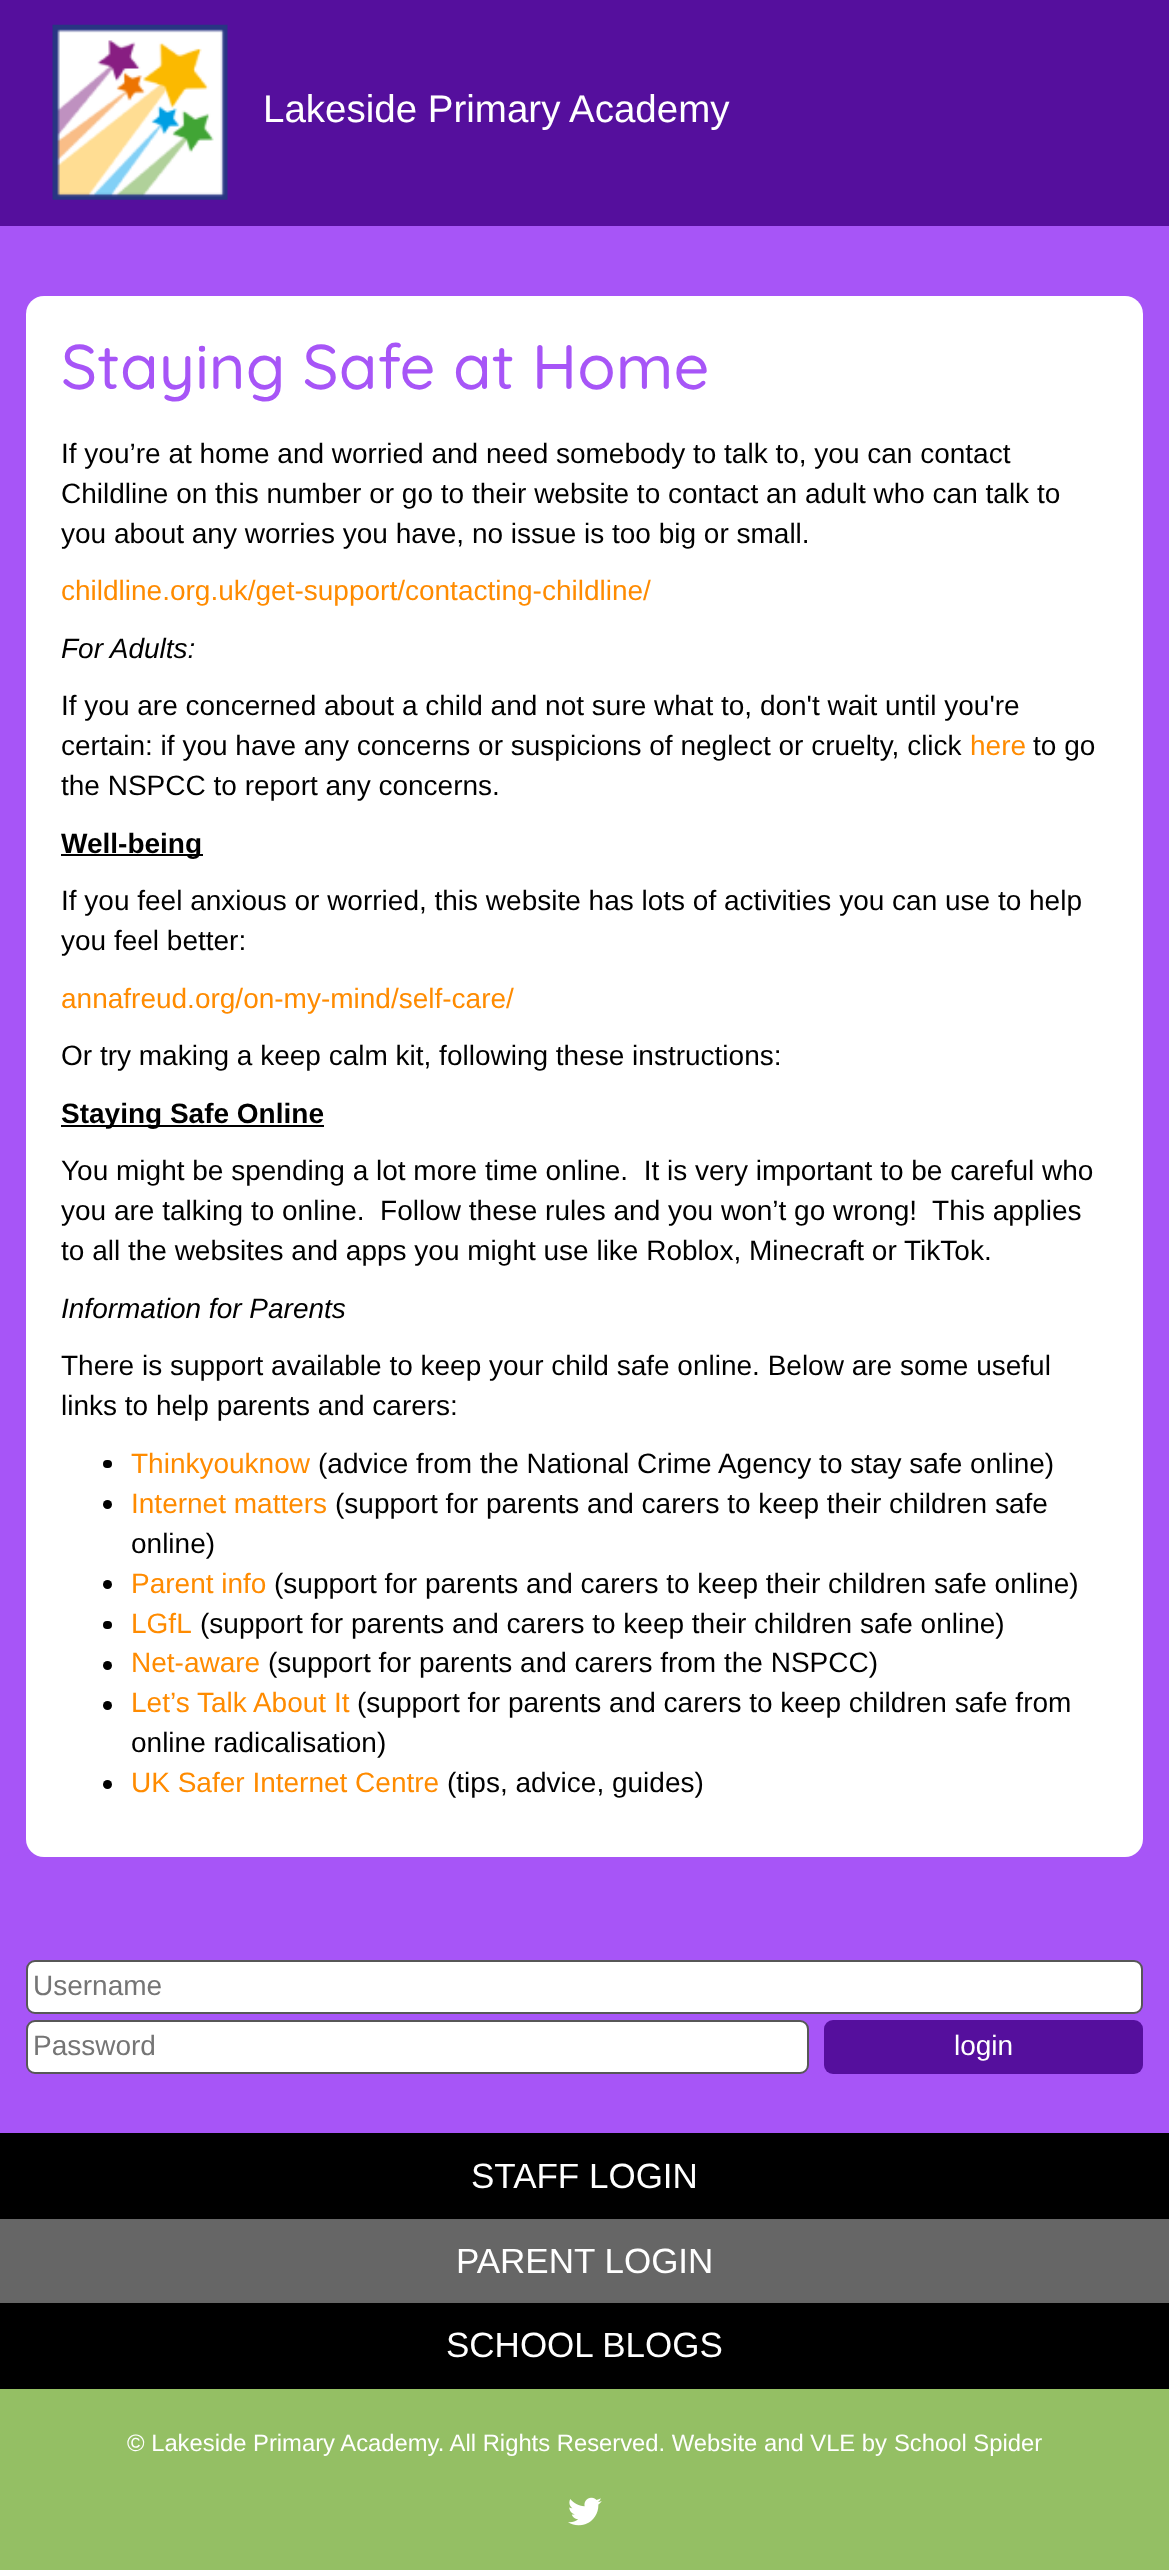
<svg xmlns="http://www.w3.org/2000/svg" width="1169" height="2570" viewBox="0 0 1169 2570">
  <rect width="100%" height="100%" fill="#a755f7"/>
  <rect x="0" y="0" width="1169" height="226" fill="#550f9d"/>
  <image x="52" y="24" width="176" height="176" href="img1.png"/>
  <text x="263" y="122" font-family="Liberation Sans" font-size="38.5" fill="#ffffff">Lakeside Primary Academy</text>
  <rect x="26" y="296" width="1117" height="1561" rx="18" fill="#ffffff"/>
  <text x="61" y="389" font-family="Quicksand" font-size="63" font-weight="500" fill="#a755f7">Staying Safe at Home</text>
  <text x="61" y="463" font-family="Liberation Sans" font-size="28" fill="#000000">If you’re at home and worried and need somebody to talk to, you can contact</text>
  <text x="61" y="503" font-family="Liberation Sans" font-size="28" fill="#000000">Childline on this number or go to their website to contact an adult who can talk to</text>
  <text x="61" y="543" font-family="Liberation Sans" font-size="28" fill="#000000">you about any worries you have, no issue is too big or small.</text>
  <text x="61" y="600" font-family="Liberation Sans" font-size="28" fill="#ff8b00">childline.org.uk/get-support/contacting-childline/</text>
  <text x="61" y="658" font-family="Liberation Sans" font-size="28" font-style="italic" fill="#000000">For Adults:</text>
  <text x="61" y="715" font-family="Liberation Sans" font-size="28" fill="#000000">If you are concerned about a child and not sure what to, don't wait until you're</text>
  <text x="61" y="755" font-family="Liberation Sans" font-size="28" fill="#000000">certain: if you have any concerns or suspicions of neglect or cruelty, click</text>
  <text x="970" y="755" font-family="Liberation Sans" font-size="28" fill="#ff8b00">here</text>
  <text x="1033" y="755" font-family="Liberation Sans" font-size="28" fill="#000000">to go</text>
  <text x="61" y="795" font-family="Liberation Sans" font-size="28" fill="#000000">the NSPCC to report any concerns.</text>
  <rect x="61" y="854" width="142" height="2" fill="#000000"/>
  <text x="61" y="853" font-family="Liberation Sans" font-size="28" font-weight="bold" fill="#000000">Well-being</text>
  <text x="61" y="910" font-family="Liberation Sans" font-size="28" fill="#000000">If you feel anxious or worried, this website has lots of activities you can use to help</text>
  <text x="61" y="950" font-family="Liberation Sans" font-size="28" fill="#000000">you feel better:</text>
  <text x="61" y="1008" font-family="Liberation Sans" font-size="28" fill="#ff8b00">annafreud.org/on-my-mind/self-care/</text>
  <text x="61" y="1065" font-family="Liberation Sans" font-size="28" fill="#000000">Or try making a keep calm kit, following these instructions:</text>
  <rect x="61" y="1125" width="263" height="2" fill="#000000"/>
  <text x="61" y="1123" font-family="Liberation Sans" font-size="28" font-weight="bold" fill="#000000">Staying Safe Online</text>
  <text x="61" y="1180" font-family="Liberation Sans" font-size="28" fill="#000000" xml:space="preserve">You might be spending a lot more time online.  It is very important to be careful who</text>
  <text x="61" y="1220" font-family="Liberation Sans" font-size="28" fill="#000000" xml:space="preserve">you are talking to online.  Follow these rules and you won’t go wrong!  This applies</text>
  <text x="61" y="1260" font-family="Liberation Sans" font-size="28" fill="#000000">to all the websites and apps you might use like Roblox, Minecraft or TikTok.</text>
  <text x="61" y="1318" font-family="Liberation Sans" font-size="28" font-style="italic" fill="#000000">Information for Parents</text>
  <text x="61" y="1375" font-family="Liberation Sans" font-size="28" fill="#000000">There is support available to keep your child safe online. Below are some useful</text>
  <text x="61" y="1415" font-family="Liberation Sans" font-size="28" fill="#000000">links to help parents and carers:</text>
  <rect x="103" y="1460" width="9" height="8" rx="4" fill="#000000"/>
  <text x="131" y="1473" font-family="Liberation Sans" font-size="28" fill="#ff8b00">Thinkyouknow</text>
  <text x="318" y="1473" font-family="Liberation Sans" font-size="28" fill="#000000">(advice from the National Crime Agency to stay safe online)</text>
  <circle cx="107.5" cy="1504.5" r="4.5" fill="#000000"/>
  <text x="131" y="1513" font-family="Liberation Sans" font-size="28" fill="#ff8b00">Internet matters</text>
  <text x="335" y="1513" font-family="Liberation Sans" font-size="28" fill="#000000">(support for parents and carers to keep their children safe</text>
  <text x="131" y="1553" font-family="Liberation Sans" font-size="28" fill="#000000">online)</text>
  <circle cx="107.5" cy="1584.5" r="4.5" fill="#000000"/>
  <text x="131" y="1593" font-family="Liberation Sans" font-size="28" fill="#ff8b00">Parent info</text>
  <text x="274" y="1593" font-family="Liberation Sans" font-size="28" fill="#000000">(support for parents and carers to keep their children safe online)</text>
  <rect x="103" y="1621" width="9" height="8" rx="4" fill="#000000"/>
  <text x="131" y="1633" font-family="Liberation Sans" font-size="28" fill="#ff8b00">LGfL</text>
  <text x="200" y="1633" font-family="Liberation Sans" font-size="28" fill="#000000">(support for parents and carers to keep their children safe online)</text>
  <circle cx="107.5" cy="1665.5" r="4.5" fill="#000000"/>
  <text x="131" y="1672" font-family="Liberation Sans" font-size="28" fill="#ff8b00">Net-aware</text>
  <text x="268" y="1672" font-family="Liberation Sans" font-size="28" fill="#000000">(support for parents and carers from the NSPCC)</text>
  <circle cx="107.5" cy="1705.5" r="4.5" fill="#000000"/>
  <text x="131" y="1712" font-family="Liberation Sans" font-size="28" fill="#ff8b00">Let’s Talk About It</text>
  <text x="357" y="1712" font-family="Liberation Sans" font-size="28" fill="#000000">(support for parents and carers to keep children safe from</text>
  <text x="131" y="1752" font-family="Liberation Sans" font-size="28" fill="#000000">online radicalisation)</text>
  <circle cx="107.5" cy="1784.5" r="4.5" fill="#000000"/>
  <text x="131" y="1792" font-family="Liberation Sans" font-size="28" fill="#ff8b00">UK Safer Internet Centre</text>
  <text x="447" y="1792" font-family="Liberation Sans" font-size="28" fill="#000000">(tips, advice, guides)</text>
  <rect x="27" y="1961" width="1115" height="52" rx="8" fill="#ffffff" stroke="#575757" stroke-width="2"/>
  <text x="33" y="1995" font-family="Liberation Sans" font-size="28" fill="#757575">Username</text>
  <rect x="27" y="2021" width="781" height="52" rx="8" fill="#ffffff" stroke="#575757" stroke-width="2"/>
  <text x="33" y="2055" font-family="Liberation Sans" font-size="28" fill="#757575">Password</text>
  <rect x="824" y="2020" width="319" height="54" rx="9" fill="#550f9d"/>
  <text x="954" y="2055" font-family="Liberation Sans" font-size="28" fill="#ffffff">login</text>
  <rect x="0" y="2133" width="1169" height="86" fill="#000000"/>
  <text x="471" y="2188" font-family="Liberation Sans" font-size="35" fill="#ffffff">STAFF LOGIN</text>
  <rect x="0" y="2219" width="1169" height="84" fill="#666666"/>
  <text x="456" y="2273" font-family="Liberation Sans" font-size="35" fill="#ffffff">PARENT LOGIN</text>
  <rect x="0" y="2303" width="1169" height="86" fill="#000000"/>
  <text x="446" y="2357" font-family="Liberation Sans" font-size="35" fill="#ffffff">SCHOOL BLOGS</text>
  <rect x="0" y="2389" width="1169" height="181" fill="#94bf64"/>
  <text x="127" y="2451" font-family="Liberation Sans" font-size="23.8" fill="#ffffff">© Lakeside Primary Academy. All Rights Reserved. Website and VLE by</text>
  <text x="894" y="2451" font-family="Liberation Sans" font-size="23.8" fill="#ffffff">School Spider</text>
  <image x="568" y="2497" width="34" height="29" href="img2.png"/>
</svg>
